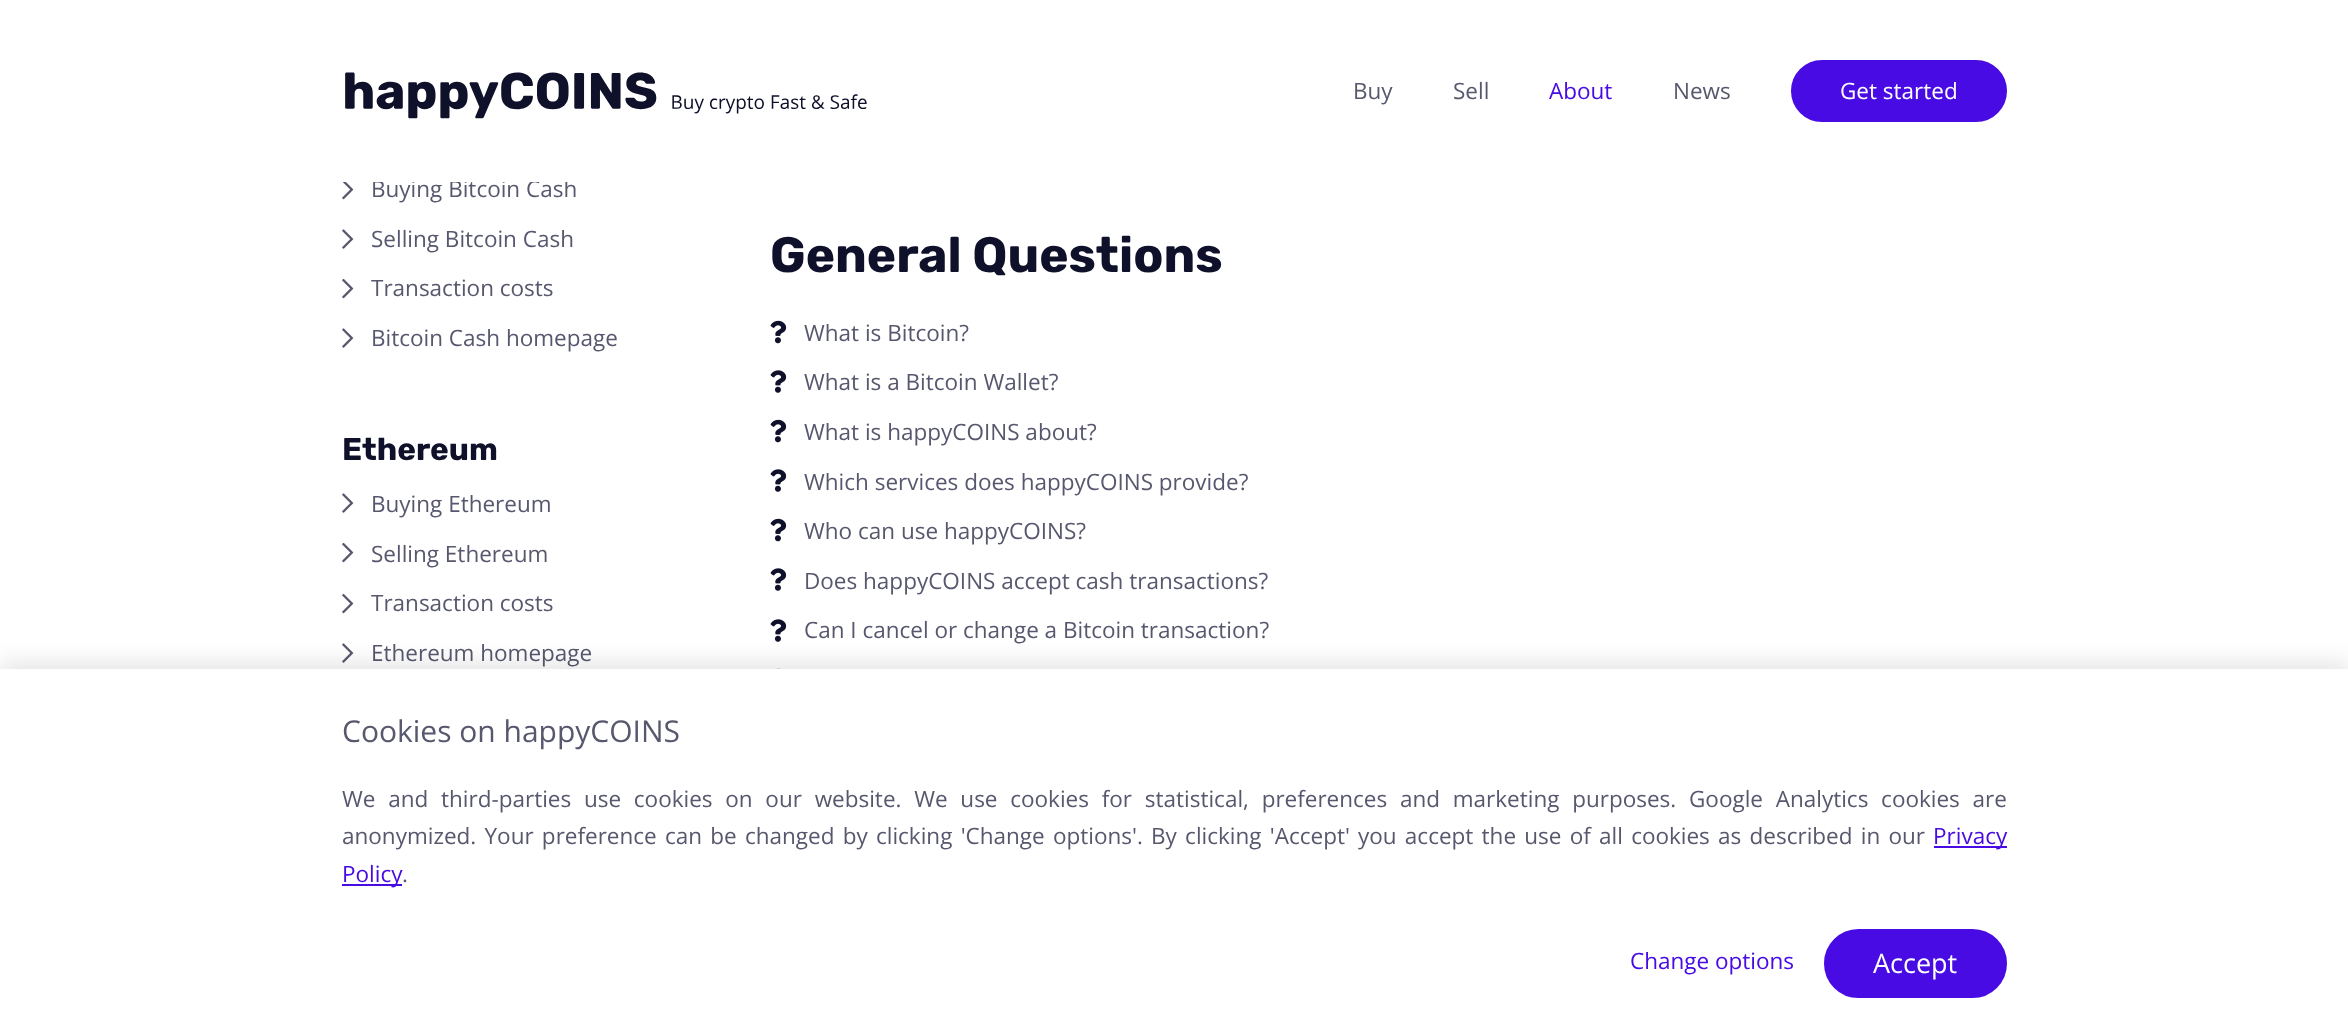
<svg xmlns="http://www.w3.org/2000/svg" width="2348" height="1033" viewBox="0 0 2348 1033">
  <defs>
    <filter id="blur1" x="-50%" y="-200%" width="200%" height="500%"><feGaussianBlur stdDeviation="11"/></filter>
  </defs>
  <rect width="100%" height="100%" fill="#ffffff"/>
  <text x="371" y="197" font-family="Open Sans" font-size="22.5" fill="#57586e">Buying Bitcoin Cash</text>
  <rect x="373" y="179" width="195" height="3" fill="#ffffff"/>
  <image x="345" y="72" width="522" height="47" href="img1.png"/>
  <text x="1353" y="99" font-family="Open Sans" font-size="22.5" fill="#57586e">Buy</text>
  <text x="1453" y="99" font-family="Open Sans" font-size="22.5" fill="#57586e">Sell</text>
  <text x="1549" y="99" font-family="Open Sans" font-size="22.5" fill="#480be3">About</text>
  <text x="1673" y="99" font-family="Open Sans" font-size="22.5" fill="#57586e">News</text>
  <rect x="1792" y="61" width="214" height="60" rx="30" fill="#480be3" stroke="#480be3" stroke-width="2"/>
  <text x="1840" y="99" font-family="Open Sans" font-size="22.5" fill="#ffffff">Get started</text>
  <image x="342" y="182" width="12" height="18" href="img2.png"/>
  <image x="342" y="229" width="12" height="20" href="img3.png"/>
  <text x="371" y="247" font-family="Open Sans" font-size="22.5" fill="#57586e">Selling Bitcoin Cash</text>
  <image x="342" y="278" width="12" height="21" href="img4.png"/>
  <text x="371" y="296" font-family="Open Sans" font-size="22.5" fill="#57586e">Transaction costs</text>
  <image x="342" y="328" width="12" height="20" href="img3.png"/>
  <text x="371" y="346" font-family="Open Sans" font-size="22.5" fill="#57586e">Bitcoin Cash homepage</text>
  <text x="342" y="460" font-family="Rubik" font-size="31.5" font-weight="300" fill="#0f102a">Ethereum</text>
  <image x="342" y="493" width="12" height="20" href="img3.png"/>
  <text x="371" y="512" font-family="Open Sans" font-size="22.5" fill="#57586e">Buying Ethereum</text>
  <image x="342" y="542" width="12" height="21" href="img4.png"/>
  <text x="371" y="562" font-family="Open Sans" font-size="22.5" fill="#57586e">Selling Ethereum</text>
  <image x="342" y="593" width="12" height="21" href="img4.png"/>
  <text x="371" y="611" font-family="Open Sans" font-size="22.5" fill="#57586e">Transaction costs</text>
  <image x="342" y="643" width="12" height="20" href="img3.png"/>
  <text x="371" y="661" font-family="Open Sans" font-size="22.5" fill="#57586e">Ethereum homepage</text>
  <text x="770" y="272" font-family="Rubik" font-size="49.5" font-weight="300" fill="#0f102a">General Questions</text>
  <image x="770" y="320" width="17" height="24" href="img5.png"/>
  <text x="804" y="341" font-family="Open Sans" font-size="22.5" fill="#57586e">What is Bitcoin?</text>
  <image x="770" y="370" width="17" height="23" href="img6.png"/>
  <text x="804" y="390" font-family="Open Sans" font-size="22.5" fill="#57586e">What is a Bitcoin Wallet?</text>
  <image x="770" y="419" width="17" height="24" href="img5.png"/>
  <text x="804" y="440" font-family="Open Sans" font-size="22.5" fill="#57586e">What is happyCOINS about?</text>
  <image x="770" y="469" width="17" height="23" href="img6.png"/>
  <text x="804" y="490" font-family="Open Sans" font-size="22.5" fill="#57586e">Which services does happyCOINS provide?</text>
  <image x="770" y="518" width="17" height="24" href="img5.png"/>
  <text x="804" y="539" font-family="Open Sans" font-size="22.5" fill="#57586e">Who can use happyCOINS?</text>
  <image x="770" y="568" width="17" height="23" href="img6.png"/>
  <text x="804" y="589" font-family="Open Sans" font-size="22.5" fill="#57586e">Does happyCOINS accept cash transactions?</text>
  <image x="770" y="619" width="17" height="23" href="img6.png"/>
  <text x="804" y="638" font-family="Open Sans" font-size="22.5" fill="#57586e">Can I cancel or change a Bitcoin transaction?</text>
  <image x="777" y="668" width="3" height="1" href="img7.png"/>
  <rect x="0" y="662" width="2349" height="364" fill="#000000" fill-opacity="0.1" filter="url(#blur1)"/>
  <rect x="0" y="669" width="2348" height="364" fill="#ffffff"/>
  <text x="342" y="742" font-family="Open Sans" font-size="30" fill="#57586e">Cookies on happyCOINS</text>
  <text x="342" y="807" word-spacing="6.9" font-family="Open Sans" font-size="22.5" fill="#57586e">We and third-parties use cookies on our website. We use cookies for statistical, preferences and marketing purposes. Google Analytics cookies are</text>
  <text x="342" y="844" word-spacing="2.4" font-family="Open Sans" font-size="22.5" fill="#57586e">anonymized. Your preference can be changed by clicking 'Change options'. By clicking 'Accept'</text>
  <text x="1358" y="844" word-spacing="2.4" font-family="Open Sans" font-size="22.5" fill="#57586e">you accept the use of all cookies as described in our</text>
  <rect x="1934" y="846" width="73" height="2" fill="#480be3"/>
  <text x="1933" y="844" font-family="Open Sans" font-size="22.5" fill="#480be3">Privacy</text>
  <rect x="342" y="884" width="60" height="2" fill="#480be3"/>
  <text x="342" y="882" font-family="Open Sans" font-size="22.5" fill="#480be3">Policy</text>
  <text x="402" y="882" font-family="Open Sans" font-size="22.5" fill="#57586e">.</text>
  <text x="1630" y="969" font-family="Open Sans" font-size="22.5" fill="#480be3">Change options</text>
  <rect x="1825" y="930" width="181" height="67" rx="33.5" fill="#480be3" stroke="#480be3" stroke-width="2"/>
  <text x="1873" y="973" font-family="Open Sans" font-size="27" fill="#ffffff">Accept</text>
</svg>
